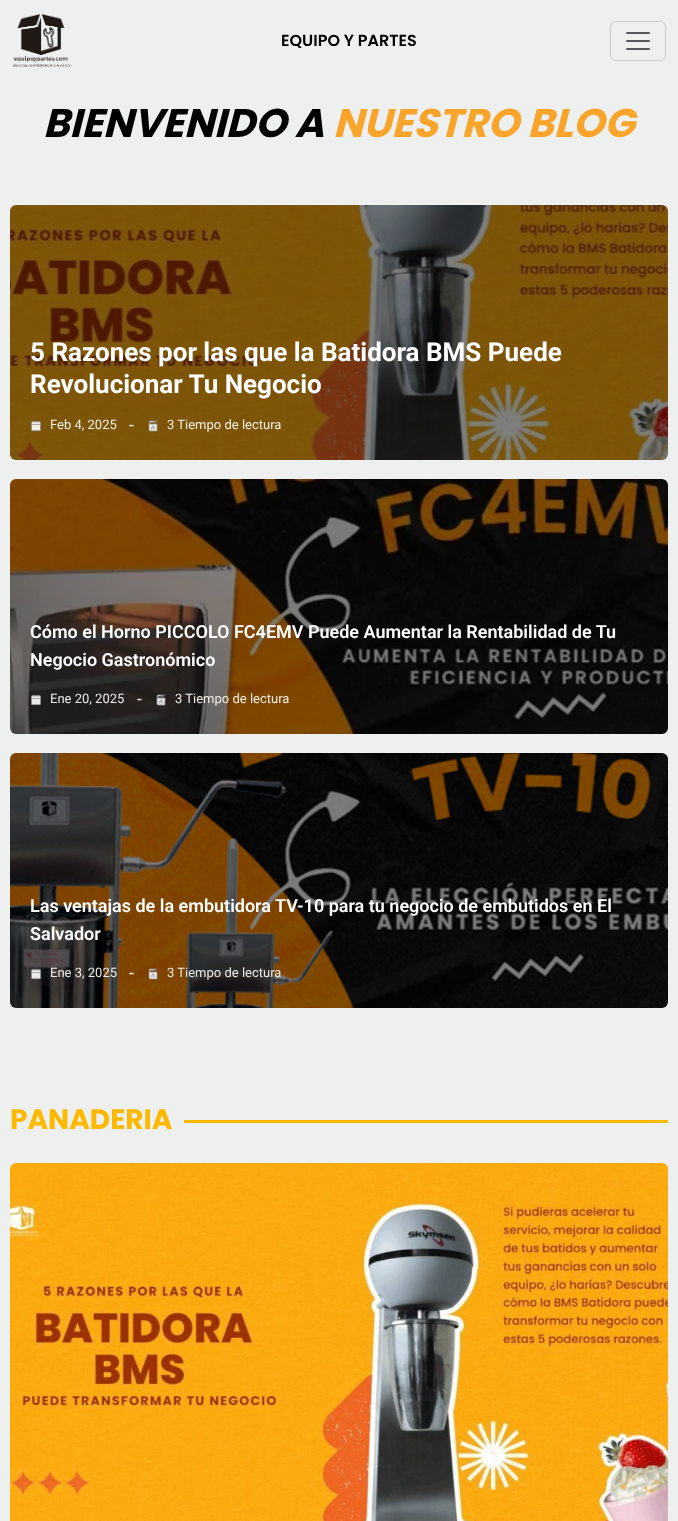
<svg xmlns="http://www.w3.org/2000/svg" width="678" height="1521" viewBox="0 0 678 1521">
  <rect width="100%" height="100%" fill="#eef0ef"/>
  <image x="13" y="14" width="58" height="53" href="img1.png"/>
  <text x="281" y="46" font-family="Poppins" font-size="16" font-weight="600" fill="#000000">EQUIPO Y PARTES</text>
  <rect x="610.5" y="21.5" width="55" height="39" rx="5.5" fill="none" stroke="#cacccb"/>
  <image x="626" y="32" width="24" height="18" href="img2.png"/>
  <text x="43" y="137" font-family="Poppins" font-size="40" font-weight="bold" font-style="italic" fill="#000000">BIENVENIDO A</text>
  <text x="333" y="137" font-family="Poppins" font-size="40" font-weight="bold" font-style="italic" fill="#f9a52b">NUESTRO BLOG</text>
  <image x="10" y="205" width="658" height="255" href="img3.png"/>
  <rect x="10" y="205" width="658" height="255" rx="6" fill="#000000" fill-opacity="0.5"/>
  <text x="30" y="361" font-family="Roboto" font-size="26" font-weight="bold" fill="#ffffff">5 Razones por las que la Batidora BMS Puede</text>
  <text x="30" y="393" font-family="Roboto" font-size="26" font-weight="bold" fill="#ffffff">Revolucionar Tu Negocio</text>
  <image x="31" y="420" width="10" height="12" href="img4.png"/>
  <text x="50" y="429" font-family="Roboto" font-size="13" fill="#f2eee6">Feb 4, 2025</text>
  <text x="129" y="431" font-family="Roboto" font-size="18" fill="#f2eee6">-</text>
  <image x="148" y="420" width="10" height="12" href="img5.png"/>
  <text x="167" y="429" font-family="Roboto" font-size="13" fill="#f2eee6">3 Tiempo de lectura</text>
  <image x="10" y="479" width="658" height="255" href="img6.png"/>
  <rect x="10" y="479" width="658" height="255" rx="6" fill="#000000" fill-opacity="0.5"/>
  <text x="30" y="638" font-family="Roboto" font-size="18" font-weight="600" fill="#ffffff">Cómo el Horno PICCOLO FC4EMV Puede Aumentar la Rentabilidad de Tu</text>
  <text x="30" y="666" font-family="Roboto" font-size="18" font-weight="600" fill="#ffffff">Negocio Gastronómico</text>
  <image x="31" y="694" width="10" height="12" href="img7.png"/>
  <text x="50" y="703" font-family="Roboto" font-size="13" fill="#e9e9e8">Ene 20, 2025</text>
  <text x="137" y="705" font-family="Roboto" font-size="18" fill="#e9e9e8">-</text>
  <image x="156" y="694" width="10" height="12" href="img8.png"/>
  <text x="175" y="703" font-family="Roboto" font-size="13" fill="#f2eee6">3 Tiempo de lectura</text>
  <image x="10" y="753" width="658" height="255" href="img9.png"/>
  <rect x="10" y="753" width="658" height="255" rx="6" fill="#000000" fill-opacity="0.5"/>
  <text x="30" y="912" font-family="Roboto" font-size="18" font-weight="600" fill="#ffffff">Las ventajas de la embutidora TV-10 para tu negocio de embutidos en El</text>
  <text x="30" y="940" font-family="Roboto" font-size="18" font-weight="600" fill="#ffffff">Salvador</text>
  <image x="31" y="968" width="10" height="12" href="img10.png"/>
  <text x="50" y="977" font-family="Roboto" font-size="13" fill="#e9e9e8">Ene 3, 2025</text>
  <text x="129" y="979" font-family="Roboto" font-size="18" fill="#f2eee6">-</text>
  <image x="148" y="968" width="10" height="12" href="img11.png"/>
  <text x="167" y="977" font-family="Roboto" font-size="13" fill="#e9e9e8">3 Tiempo de lectura</text>
  <text x="10" y="1129" font-family="Poppins" font-size="28" font-weight="bold" fill="#fcb900">PANADERIA</text>
  <rect x="184" y="1120" width="484" height="3" fill="#fcb900"/>
  <image x="10" y="1163" width="658" height="358" href="img12.png"/>
</svg>
